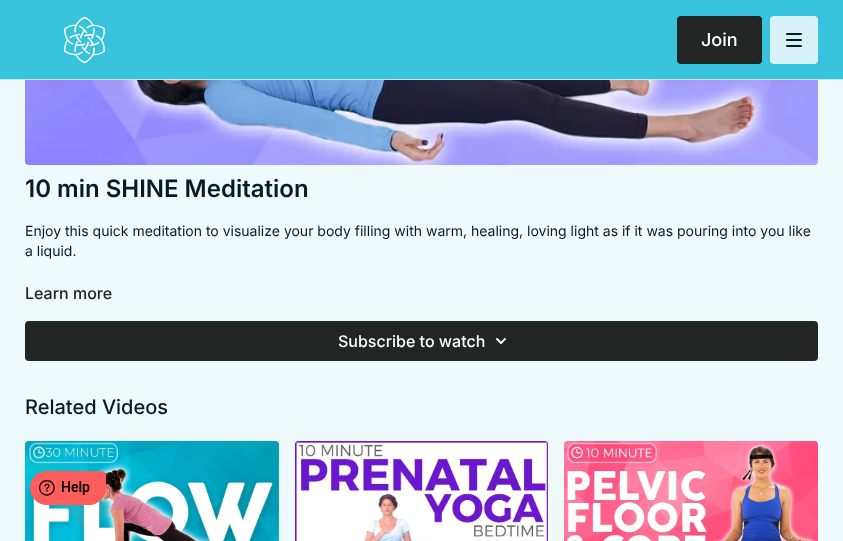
<svg xmlns="http://www.w3.org/2000/svg" width="843" height="541" viewBox="0 0 843 541">
  <rect width="100%" height="100%" fill="#eefafc"/>
  <rect x="0" y="0" width="843" height="79" fill="#38c3dc"/>
  <rect x="0" y="79" width="843" height="1" fill="#beebf4"/>
  <image x="64" y="16" width="42" height="48" href="img1.png"/>
  <rect x="677" y="16" width="85" height="48" rx="4" fill="#232424"/>
  <text x="701" y="46" font-family="Inter" font-size="18" font-weight="500" fill="#ffffff">Join</text>
  <rect x="770" y="16" width="48" height="48" rx="4" fill="#d8f3f8"/>
  <image x="786" y="33" width="16" height="14" href="img2.png"/>
  <image x="25" y="80" width="793" height="85" href="img3.png"/>
  <text x="25" y="197" font-family="Inter" font-size="24" font-weight="600" fill="#061e23">10 min SHINE Meditation</text>
  <text x="25" y="236" font-family="Inter" font-size="14" fill="#061e23">Enjoy this quick meditation to visualize your body filling with warm, healing, loving light as if it was pouring into you like</text>
  <text x="25" y="256" font-family="Inter" font-size="14" fill="#061e23">a liquid.</text>
  <text x="25" y="299" font-family="Inter" font-size="16" font-weight="500" fill="#232424">Learn more</text>
  <rect x="25" y="321" width="793" height="40" rx="4" fill="#232424"/>
  <text x="338" y="347" font-family="Inter" font-size="16" font-weight="500" fill="#ffffff">Subscribe to watch</text>
  <image x="496" y="338" width="10" height="6" href="img4.png"/>
  <text x="25" y="414" font-family="Inter" font-size="20" font-weight="500" fill="#061e23">Related Videos</text>
  <image x="25" y="441" width="254" height="100" href="img5.png"/>
  <image x="295" y="441" width="253" height="100" href="img6.png"/>
  <image x="564" y="441" width="254" height="100" href="img7.png"/>
  <image x="30" y="471" width="76" height="34" href="img8.png"/>
</svg>
